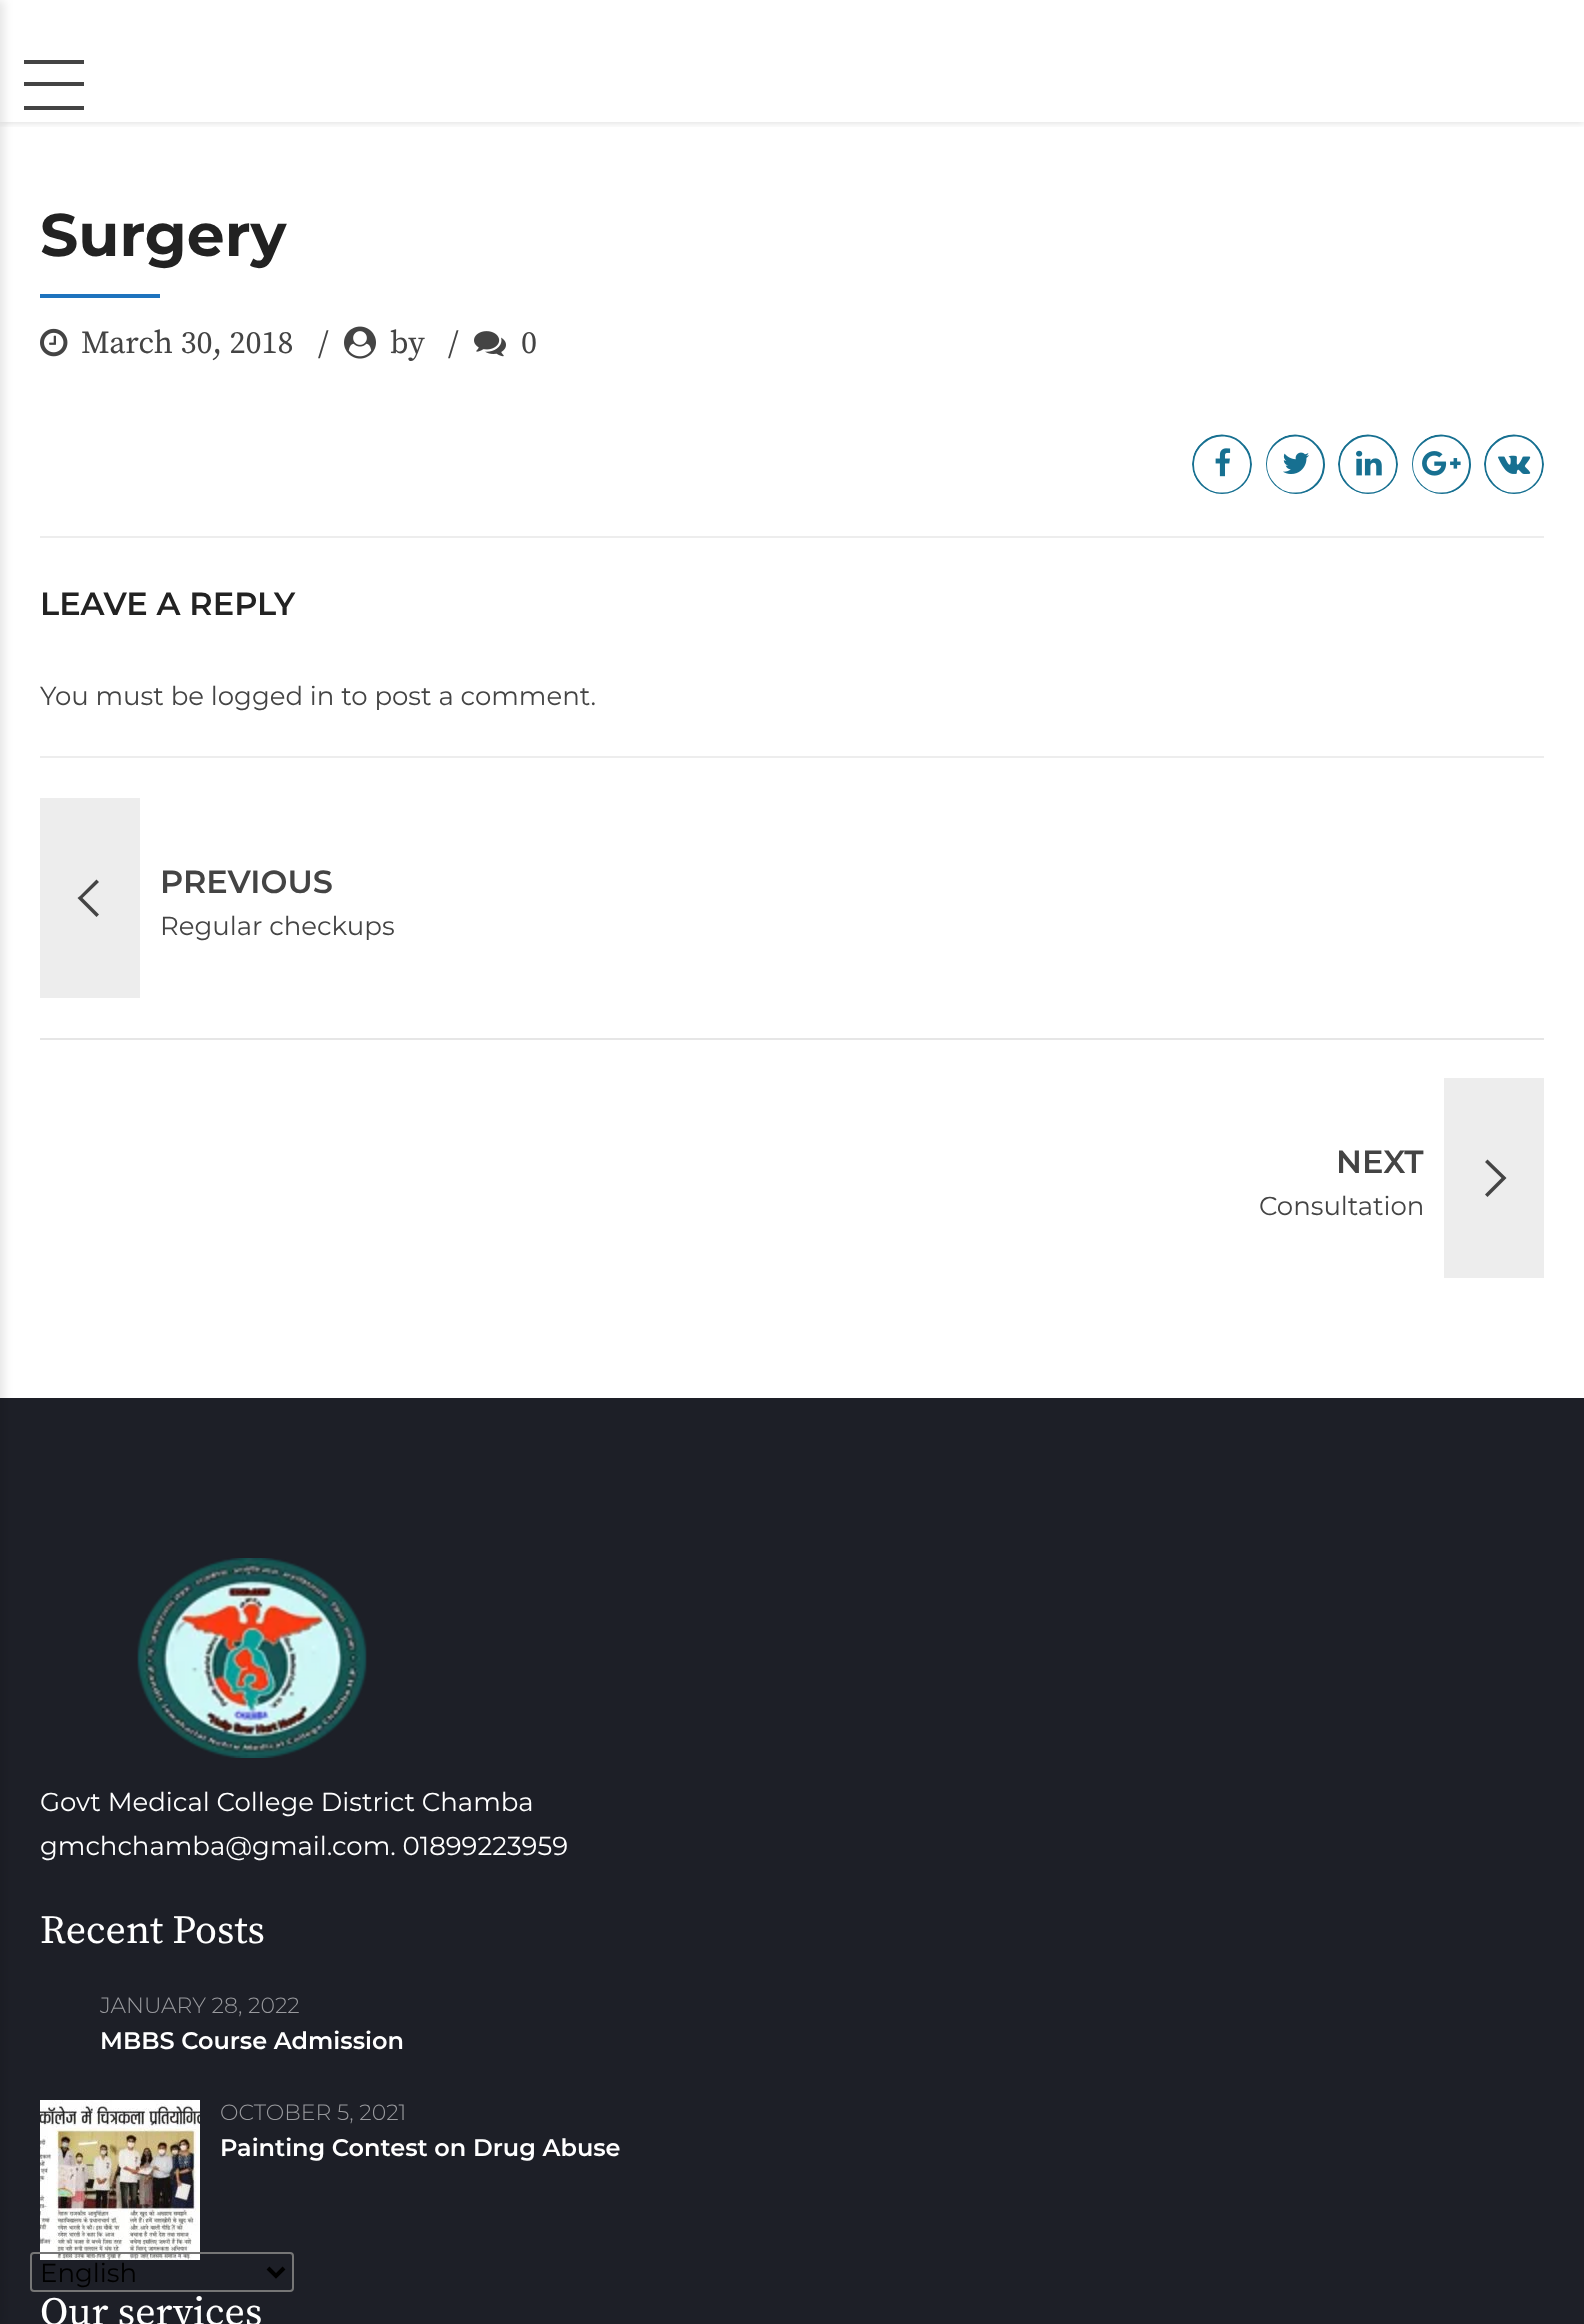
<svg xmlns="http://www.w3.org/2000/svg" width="1584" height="2324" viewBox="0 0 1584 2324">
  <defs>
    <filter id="blur1" x="-50%" y="-200%" width="200%" height="500%"><feGaussianBlur stdDeviation="5"/></filter>
    <clipPath id="clip1"><rect x="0" y="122" width="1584" height="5"/></clipPath>
    <filter id="blur2" x="-50%" y="-200%" width="200%" height="500%"><feGaussianBlur stdDeviation="3"/></filter>
    <clipPath id="clip2"><rect x="1192" y="434" width="60" height="60" rx="30"/></clipPath>
    <clipPath id="clip3"><rect x="1266" y="434" width="60" height="60" rx="30"/></clipPath>
    <clipPath id="clip4"><rect x="1338" y="434" width="60" height="60" rx="30"/></clipPath>
    <clipPath id="clip5"><rect x="1412" y="434" width="60" height="60" rx="30"/></clipPath>
    <clipPath id="clip6"><rect x="1484" y="434" width="60" height="60" rx="30"/></clipPath>
  </defs>
  <rect width="100%" height="100%" fill="#ffffff"/>
  <rect x="0" y="1398" width="1584" height="926" fill="#1d1f27"/>
  <rect x="-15" y="0" width="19" height="2324" fill="#000000" fill-opacity="0.1" filter="url(#blur1)"/>
  <g clip-path="url(#clip1)">
    <rect x="0" y="2" width="1584" height="122" fill="#000000" fill-opacity="0.1" filter="url(#blur2)"/>
  </g>
  <rect x="24" y="60" width="60" height="4" fill="#444444"/>
  <rect x="24" y="82" width="60" height="4" fill="#444444"/>
  <rect x="24" y="106" width="60" height="4" fill="#444444"/>
  <text x="40" y="256" font-family="Montserrat" font-size="60" font-weight="bold" fill="#222222">Surgery</text>
  <rect x="40" y="294" width="120" height="4" fill="#1e73be"/>
  <image x="40" y="328" width="28" height="29" href="img1.png"/>
  <text x="81" y="353" font-family="Source Serif Pro" font-size="32" fill="#444444">March 30, 2018</text>
  <text x="318" y="353" font-family="Source Serif Pro" font-size="32" fill="#444444">/</text>
  <image x="344" y="326" width="32" height="33" href="img2.png"/>
  <text x="390" y="353" font-family="Source Serif Pro" font-size="32" fill="#444444">by</text>
  <text x="448" y="353" font-family="Source Serif Pro" font-size="32" fill="#444444">/</text>
  <image x="474" y="331" width="32" height="26" href="img3.png"/>
  <text x="521" y="353" font-family="Source Serif Pro" font-size="32" fill="#444444">0</text>
  <g clip-path="url(#clip2)">
    <path d="M1244 446C1254.5 458 1253 476.5 1240.5 487C1228.5 497 1210 495.5 1200 483C1189.5 471 1191 452.5 1203.5 442.5C1215.5 432 1234 433.5 1244 446Z" fill="none" stroke="#177091" stroke-width="2"/>
  </g>
  <image x="1215" y="448" width="16" height="29" href="img4.png"/>
  <g clip-path="url(#clip3)">
    <path d="M1317 446C1327.5 458 1326 476.5 1313.5 487C1301.5 497 1283 495.5 1273 483C1262.5 471 1264 452.5 1276.5 442.5C1288.5 432 1307 433.5 1317 446Z" fill="none" stroke="#177091" stroke-width="2"/>
  </g>
  <image x="1283" y="452" width="26" height="22" href="img5.png"/>
  <g clip-path="url(#clip4)">
    <path d="M1390 446C1400.5 458 1399 476.5 1386.5 487C1374.5 497 1356 495.5 1346 483C1335.5 471 1337 452.5 1349.5 442.5C1361.5 432 1380 433.5 1390 446Z" fill="none" stroke="#177091" stroke-width="2"/>
  </g>
  <image x="1356" y="450" width="26" height="26" href="img6.png"/>
  <g clip-path="url(#clip5)">
    <path d="M1463 446C1473.5 458 1472 476.5 1459.5 487C1447.5 497 1429 495.5 1419 483C1408.5 471 1410 452.5 1422.5 442.5C1434.5 432 1453 433.5 1463 446Z" fill="none" stroke="#177091" stroke-width="2"/>
  </g>
  <image x="1422" y="451" width="39" height="25" href="img7.png"/>
  <g clip-path="url(#clip6)">
    <path d="M1536 446C1546.5 458 1545 476.5 1532.5 487C1520.5 497 1502 495.5 1492 483C1481.5 471 1483 452.5 1495.5 442.5C1507.5 432 1526 433.5 1536 446Z" fill="none" stroke="#177091" stroke-width="2"/>
  </g>
  <image x="1498" y="455" width="33" height="19" href="img8.png"/>
  <rect x="40" y="536" width="1504" height="2" fill="#ededed"/>
  <text x="40" y="615" font-family="Montserrat" font-size="32" font-weight="600" fill="#222222">LEAVE A REPLY</text>
  <text x="40" y="705" font-family="Montserrat" font-size="26" fill="#444444">You must be logged in to post a comment.</text>
  <rect x="40" y="756" width="1504" height="2" fill="#ededed"/>
  <rect x="40" y="798" width="100" height="200" fill="#ededed"/>
  <path d="M80 896L77.5 898L96.5 917L99 914.5L82.5 898L99 882L96.5 879.5Z" fill="#444444"/>
  <text x="160" y="893" font-family="Montserrat" font-size="32" font-weight="600" fill="#444444">PREVIOUS</text>
  <text x="160" y="935" font-family="Montserrat" font-size="26" fill="#444444">Regular checkups</text>
  <rect x="40" y="1038" width="1504" height="2" fill="#e6e6e6"/>
  <text x="1336" y="1173" font-family="Montserrat" font-size="32" font-weight="600" fill="#444444">NEXT</text>
  <text x="1259" y="1215" font-family="Montserrat" font-size="26" fill="#444444">Consultation</text>
  <rect x="1444" y="1078" width="100" height="200" fill="#ededed"/>
  <path d="M1504 1180.5L1506.5 1178L1487.5 1159.5L1485 1162L1501.5 1178L1485 1194.5L1487.5 1197Z" fill="#444444"/>
  <image x="137" y="1558" width="230" height="200" href="img9.png"/>
  <text x="40" y="1811" font-family="Montserrat" font-size="26" fill="#ffffff">Govt Medical College District Chamba</text>
  <text x="40" y="1855" font-family="Montserrat" font-size="26" fill="#ffffff">gmchchamba@gmail.com. 01899223959</text>
  <text x="40" y="1943" font-family="Source Serif Pro" font-size="40" fill="#ffffff">Recent Posts</text>
  <text x="100" y="2013" font-family="Montserrat" font-size="22" font-weight="300" fill="#999a9e">JANUARY 28, 2022</text>
  <text x="100" y="2049" font-family="Montserrat" font-size="24" font-weight="600" fill="#ffffff">MBBS Course Admission</text>
  <image x="40" y="2100" width="160" height="160" href="img10.png"/>
  <text x="220" y="2120" font-family="Montserrat" font-size="22" font-weight="300" fill="#999a9e">OCTOBER 5, 2021</text>
  <text x="220" y="2156" font-family="Montserrat" font-size="24" font-weight="600" fill="#ffffff">Painting Contest on Drug Abuse</text>
  <text x="40" y="2325" font-family="Source Serif Pro" font-size="40" fill="#ffffff">Our services</text>
  <rect x="31" y="2253" width="262" height="38" rx="3" fill="none" stroke="#767676" stroke-width="2"/>
  <path d="M268 2268L276 2276L284 2268" fill="none" stroke="#000000" stroke-width="4"/>
  <text x="40" y="2282" font-family="Montserrat" font-size="26" fill="#000000">English</text>
</svg>
